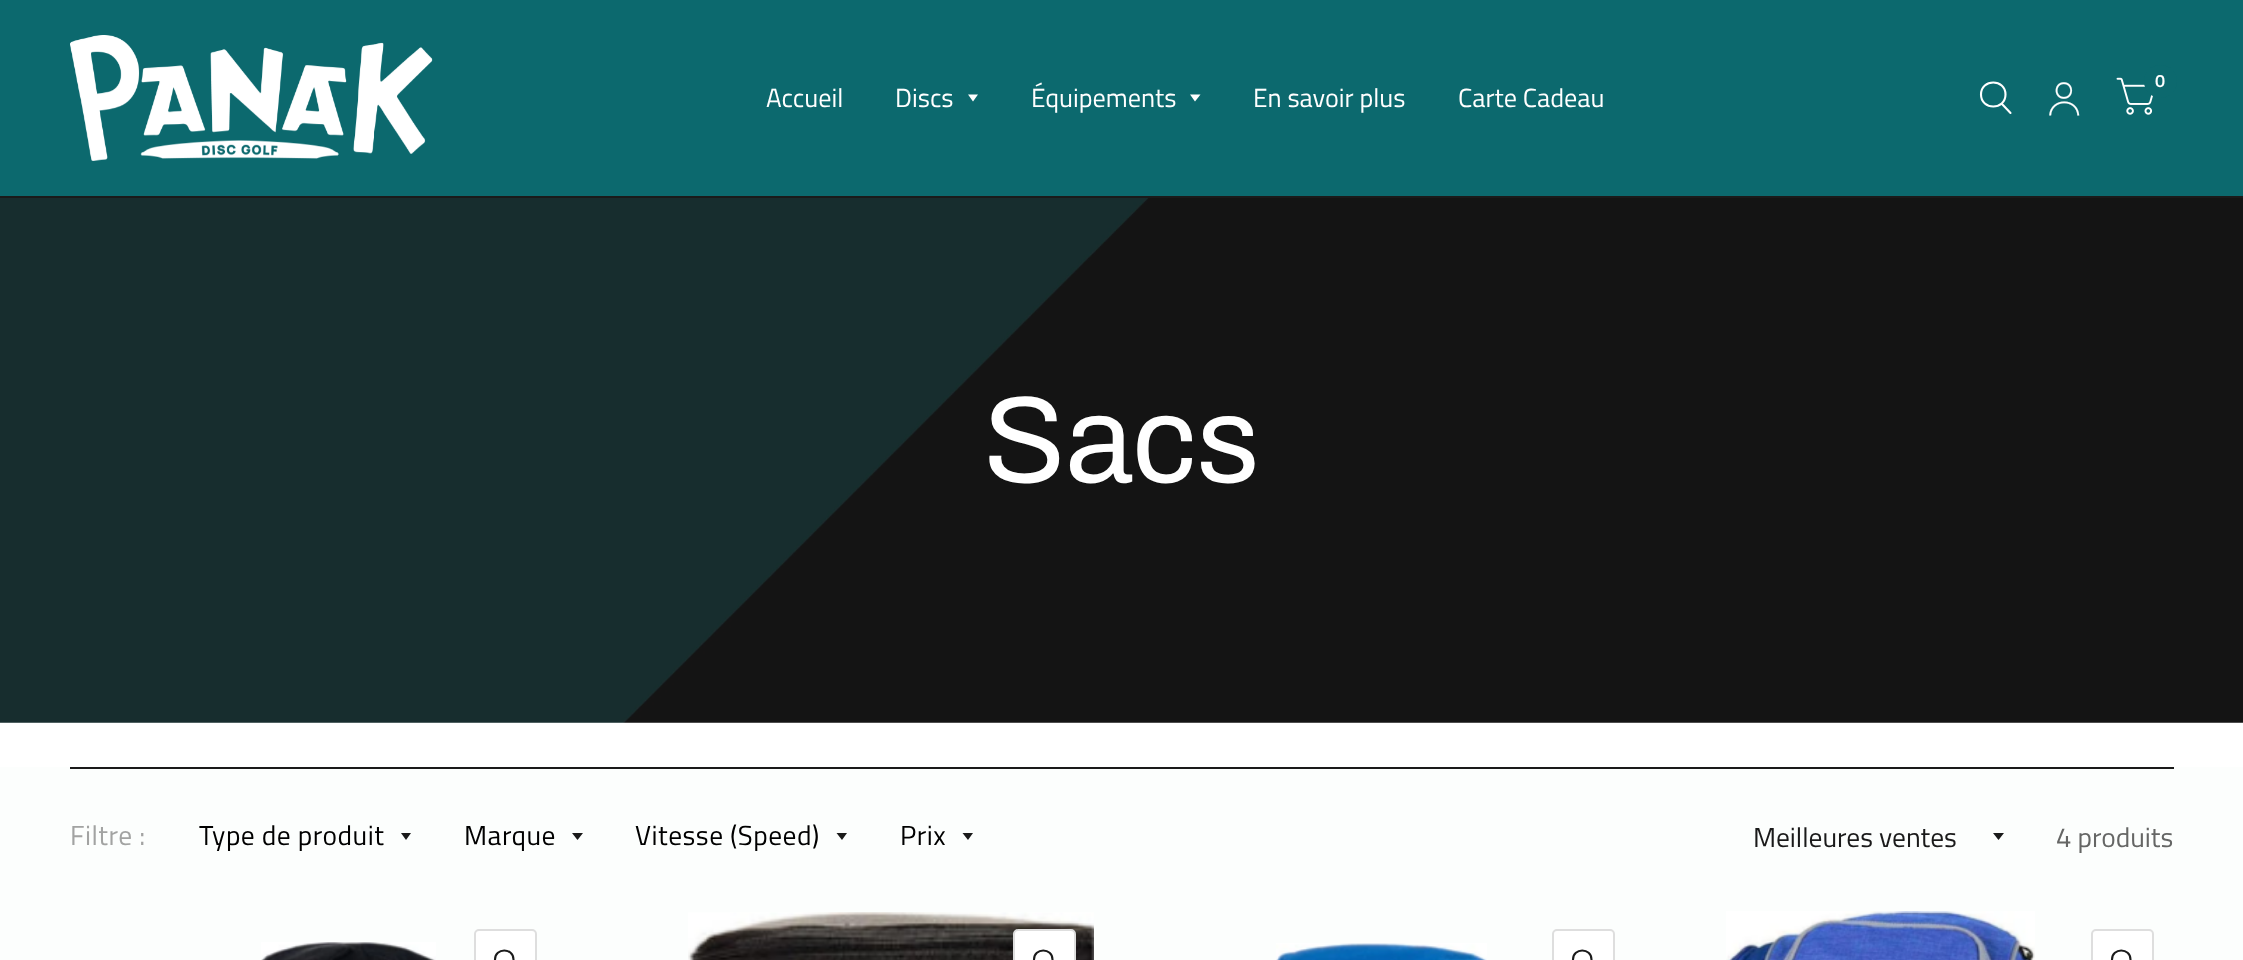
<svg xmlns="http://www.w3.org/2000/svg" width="2243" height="960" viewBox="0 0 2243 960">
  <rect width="100%" height="100%" fill="#ffffff"/>
  <rect x="0" y="0" width="2243" height="196" fill="#0c696e"/>
  <rect x="0" y="196" width="2243" height="2" fill="#1a1a1a"/>
  <image x="70" y="35" width="363" height="126" href="img1.png"/>
  <text x="766" y="107" font-family="Titillium Web" font-size="26.25" fill="#ffffff">Accueil</text>
  <text x="895" y="107" font-family="Titillium Web" font-size="26.25" fill="#ffffff">Discs</text>
  <path d="M968 94.5H978L973 101.5Z" fill="#ffffff"/>
  <text x="1031" y="107" font-family="Titillium Web" font-size="26.25" fill="#ffffff">Équipements</text>
  <path d="M1190 94.5H1200.5L1195 101.5Z" fill="#ffffff"/>
  <text x="1253" y="107" font-family="Titillium Web" font-size="26.25" fill="#ffffff">En savoir plus</text>
  <text x="1458" y="107" font-family="Titillium Web" font-size="26.25" fill="#ffffff">Carte Cadeau</text>
  <path d="M2002 104L2010.5 113M2005.5 94.5C2005.5 110.5 1981 110.5 1981 94.5C1981 78.5 2005.5 78.5 2005.5 94.5Z" fill="none" stroke="#ffffff" stroke-width="2.1" stroke-linecap="round" stroke-linejoin="round"/>
  <image x="2049" y="82" width="31" height="34" href="img2.png"/>
  <image x="2116" y="77" width="37" height="38" href="img3.png"/>
  <circle cx="2160.5" cy="81.5" r="16.5" fill="#0c696e"/>
  <text x="2155" y="87" font-family="Titillium Web" font-size="18" font-weight="600" fill="#ffffff">0</text>
  <image x="0" y="198" width="2243" height="525" href="img4.png"/>
  <text x="983" y="482" font-family="Archivo" font-size="123" fill="#ffffff">Sacs</text>
  <rect x="0" y="767" width="2243" height="193" fill="#fcfefd"/>
  <rect x="70" y="767" width="2104" height="2" fill="#1a1a1a"/>
  <text x="70" y="845" font-family="Titillium Web" font-size="27.5" letter-spacing="0.5" fill="#a2a3a2">Filtre :</text>
  <text x="199" y="845" font-family="Titillium Web" font-size="27.5" letter-spacing="0.5" fill="#000000">Type de produit</text>
  <path d="M401 833H411L406 840Z" fill="#1a1a1a"/>
  <text x="464" y="845" font-family="Titillium Web" font-size="27.5" letter-spacing="0.5" fill="#000000">Marque</text>
  <path d="M572 833H583L577.5 840Z" fill="#1a1a1a"/>
  <text x="635" y="845" font-family="Titillium Web" font-size="27.5" letter-spacing="0.5" fill="#000000">Vitesse (Speed)</text>
  <path d="M836.5 833H847L842 840Z" fill="#1a1a1a"/>
  <text x="900" y="845" font-family="Titillium Web" font-size="27.5" letter-spacing="0.5" fill="#000000">Prix</text>
  <path d="M962.5 833H973L968 840Z" fill="#1a1a1a"/>
  <text x="1753" y="847" font-family="Titillium Web" font-size="27.5" fill="#1a1a1a">Meilleures ventes</text>
  <path d="M1993 833H2004L1998.5 840Z" fill="#1a1a1a"/>
  <text x="2056" y="847" font-family="Titillium Web" font-size="27.5" fill="#656665">4 produits</text>
  <image x="261" y="942" width="175" height="18" href="img5.png"/>
  <rect x="475" y="930" width="61" height="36" rx="4" fill="#ffffff" stroke="#dedede" stroke-width="2"/>
  <path d="M511 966L516 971M513.5 959.5C513.5 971.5 495 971.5 495 959.5C495 947.5 513.5 947.5 513.5 959.5Z" fill="none" stroke="#1a1a1a" stroke-width="2.1" stroke-linecap="round" stroke-linejoin="round"/>
  <image x="688" y="912" width="406" height="48" href="img6.png"/>
  <rect x="1014" y="930" width="61" height="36" rx="4" fill="#ffffff" stroke="#dedede" stroke-width="2"/>
  <path d="M1050 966L1055 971M1052.5 959.5C1052.5 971.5 1034 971.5 1034 959.5C1034 947.5 1052.5 947.5 1052.5 959.5Z" fill="none" stroke="#1a1a1a" stroke-width="2.1" stroke-linecap="round" stroke-linejoin="round"/>
  <image x="1276" y="943" width="211" height="17" href="img7.png"/>
  <rect x="1553" y="930" width="61" height="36" rx="4" fill="#ffffff" stroke="#dedede" stroke-width="2"/>
  <path d="M1589 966L1594 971M1591.5 959.5C1591.5 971.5 1573 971.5 1573 959.5C1573 947.5 1591.5 947.5 1591.5 959.5Z" fill="none" stroke="#1a1a1a" stroke-width="2.1" stroke-linecap="round" stroke-linejoin="round"/>
  <image x="1726" y="911" width="309" height="49" href="img8.png"/>
  <rect x="2092" y="930" width="61" height="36" rx="4" fill="#ffffff" stroke="#dedede" stroke-width="2"/>
  <path d="M2128 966L2133 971M2130.5 959.5C2130.5 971.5 2112 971.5 2112 959.5C2112 947.5 2130.5 947.5 2130.5 959.5Z" fill="none" stroke="#1a1a1a" stroke-width="2.1" stroke-linecap="round" stroke-linejoin="round"/>
</svg>
